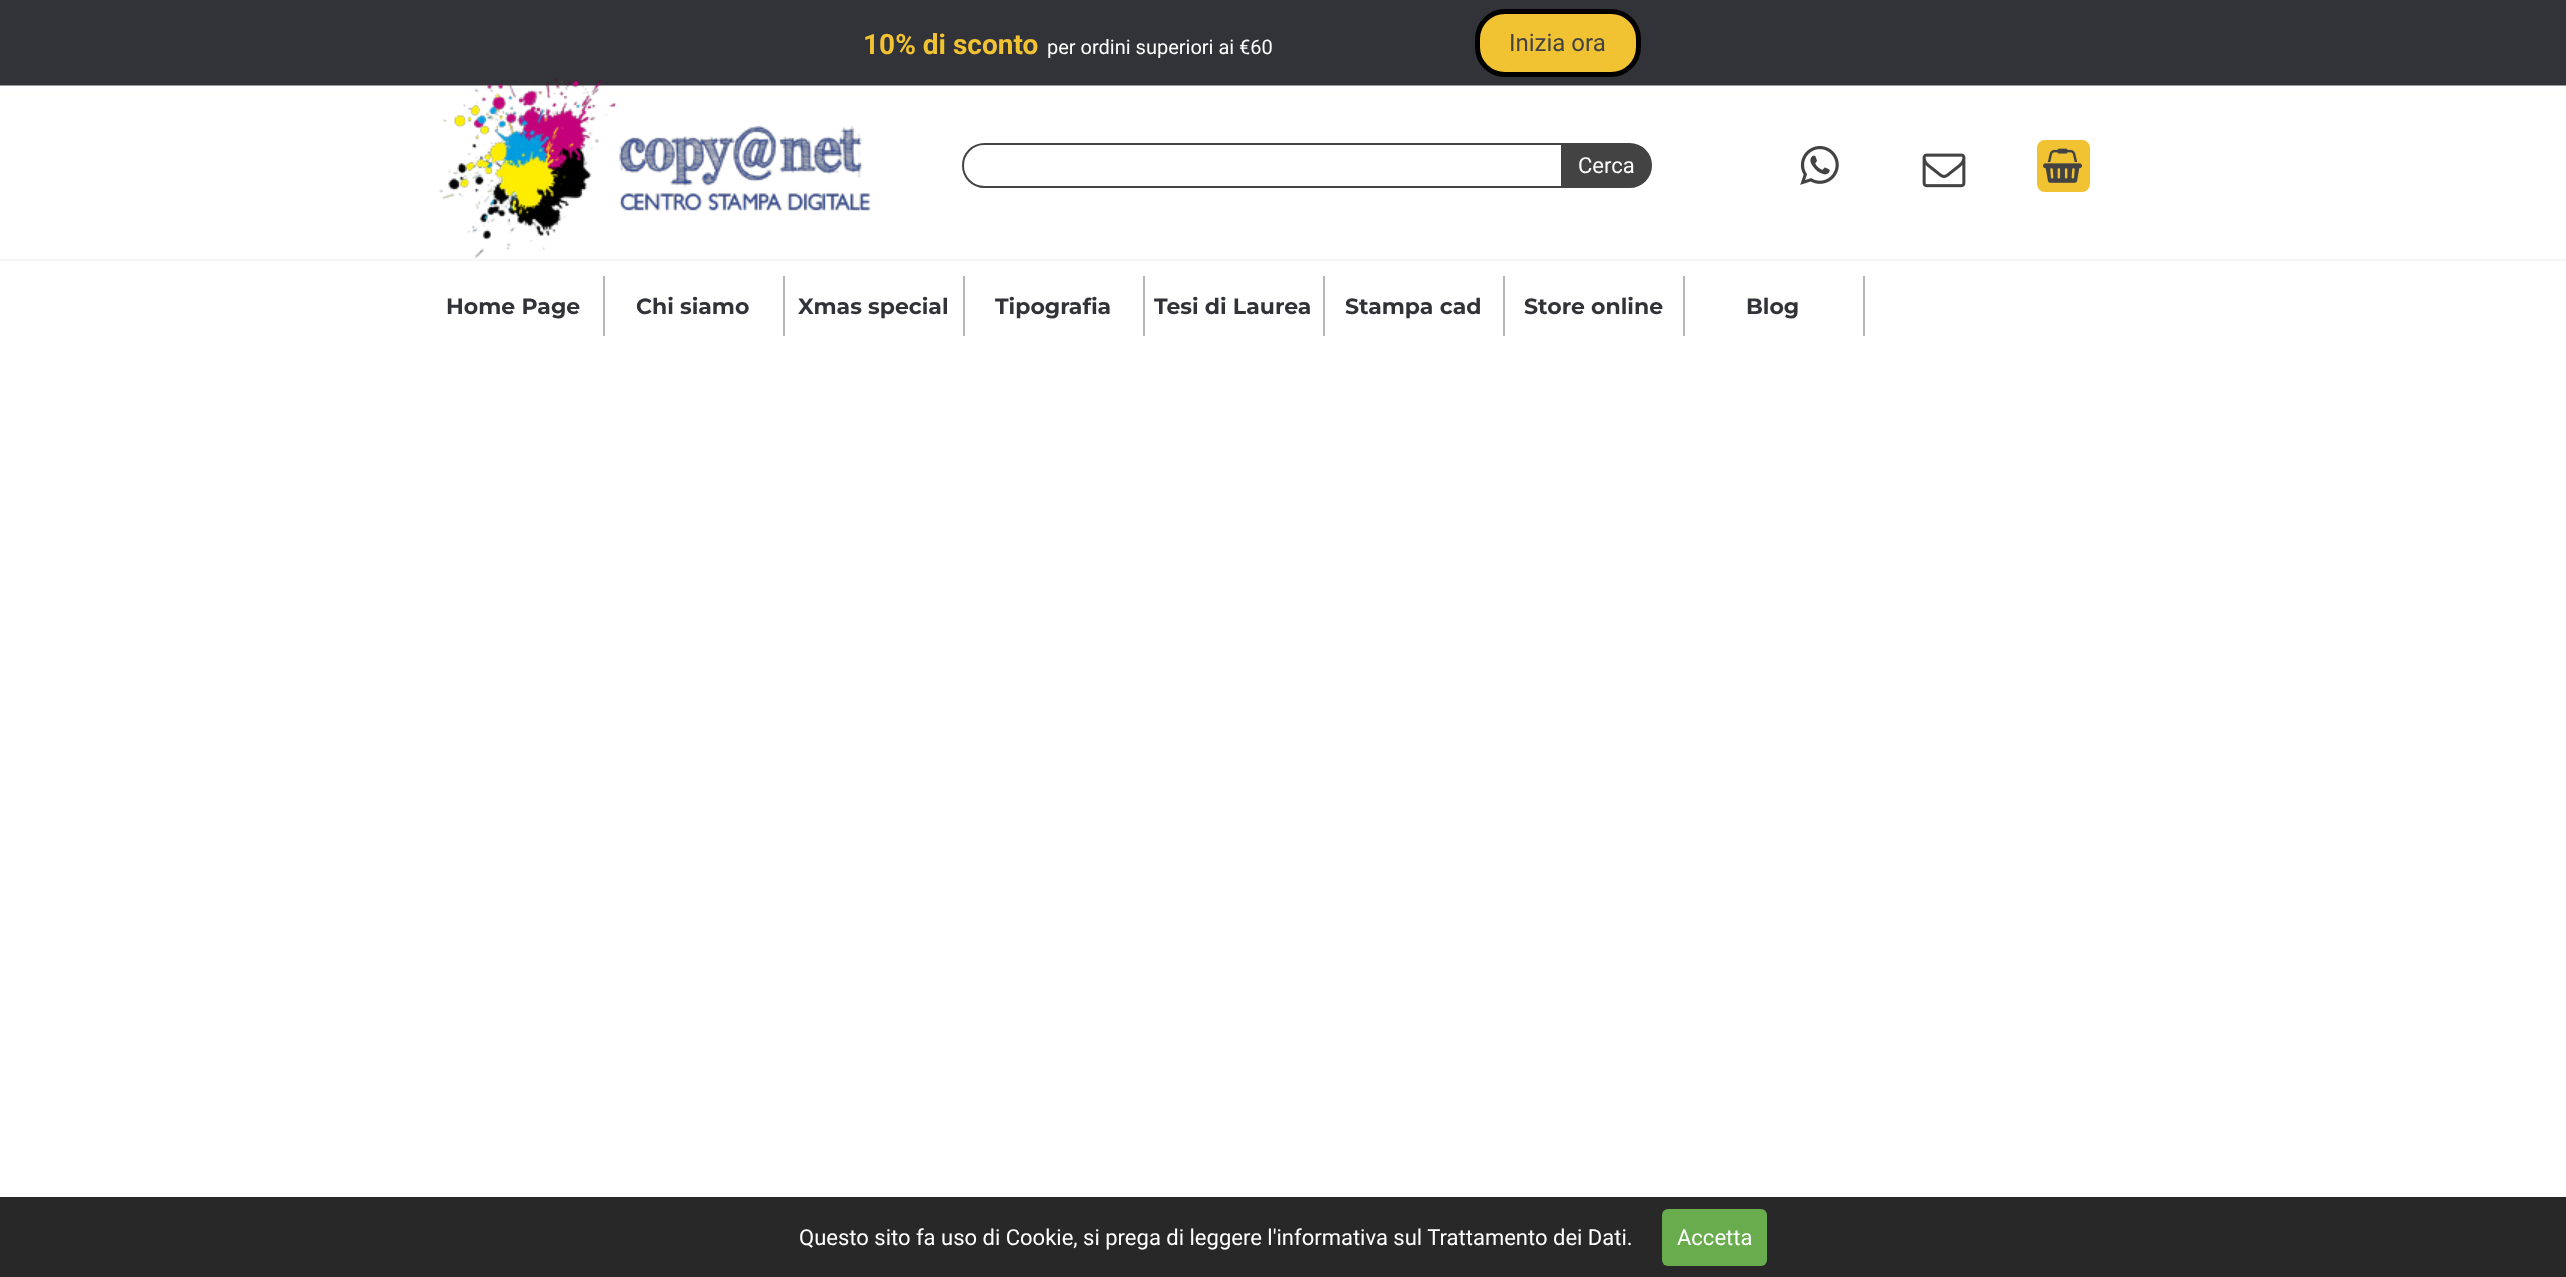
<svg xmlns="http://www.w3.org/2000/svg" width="2566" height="1277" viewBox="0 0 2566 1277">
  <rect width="100%" height="100%" fill="#ffffff"/>
  <image x="0" y="0" width="2566" height="261" href="img1.png"/>
  <text x="863" y="54" font-family="Roboto" font-size="28" font-weight="bold" fill="#f1c232">10% di sconto</text>
  <text x="1047" y="54" font-family="Roboto" font-size="20" fill="#ffffff">per ordini superiori ai €60</text>
  <rect x="1477.5" y="11.5" width="161" height="63" rx="27.5" fill="#f1c232" stroke="#000000" stroke-width="5"/>
  <text x="1509" y="51" font-family="Roboto" font-size="24" fill="#434343">Inizia ora</text>
  <image x="439" y="78" width="432" height="181" href="img2.png"/>
  <path d="M984.5 144H1562V187H984.5C972.5 187 963 177.5 963 165.5C963 153.5 972.5 144 984.5 144Z" fill="none" stroke="#434343" stroke-width="2"/>
  <path d="M1563 144H1629.5C1641.5 144 1651 153.5 1651 165.5C1651 177.5 1641.5 187 1629.5 187H1563Z" fill="#434343" stroke="#434343" stroke-width="2"/>
  <text x="1578" y="173" font-family="Roboto" font-size="22" fill="#ffffff">Cerca</text>
  <image x="1800" y="146" width="39" height="39" href="img3.png"/>
  <image x="1922" y="153" width="44" height="35" href="img4.png"/>
  <rect x="2037" y="140" width="53" height="52" rx="8" fill="#f1c232"/>
  <image x="2043" y="148" width="39" height="35" href="img5.png"/>
  <rect x="603" y="276" width="2" height="60" fill="#b7b7b7"/>
  <text x="446" y="314" font-family="Montserrat" font-size="22" font-weight="bold" fill="#323338">Home Page</text>
  <rect x="783" y="276" width="2" height="60" fill="#b7b7b7"/>
  <text x="636" y="314" font-family="Montserrat" font-size="22" font-weight="bold" fill="#323338">Chi siamo</text>
  <rect x="963" y="276" width="2" height="60" fill="#b7b7b7"/>
  <text x="798" y="314" font-family="Montserrat" font-size="22" font-weight="bold" fill="#323338">Xmas special</text>
  <rect x="1143" y="276" width="2" height="60" fill="#b7b7b7"/>
  <text x="995" y="314" font-family="Montserrat" font-size="22" font-weight="bold" fill="#323338">Tipografia</text>
  <rect x="1323" y="276" width="2" height="60" fill="#b7b7b7"/>
  <text x="1154" y="314" font-family="Montserrat" font-size="22" font-weight="bold" fill="#323338">Tesi di Laurea</text>
  <rect x="1503" y="276" width="2" height="60" fill="#b7b7b7"/>
  <text x="1345" y="314" font-family="Montserrat" font-size="22" font-weight="bold" fill="#323338">Stampa cad</text>
  <rect x="1683" y="276" width="2" height="60" fill="#b7b7b7"/>
  <text x="1524" y="314" font-family="Montserrat" font-size="22" font-weight="bold" fill="#323338">Store online</text>
  <rect x="1863" y="276" width="2" height="60" fill="#b7b7b7"/>
  <text x="1746" y="314" font-family="Montserrat" font-size="22" font-weight="bold" fill="#323338">Blog</text>
  <rect x="0" y="1197" width="2566" height="80" fill="#282828"/>
  <text x="799" y="1245" font-family="Roboto" font-size="22" fill="#ffffff">Questo sito fa uso di Cookie, si prega di leggere l'informativa sul Trattamento dei Dati.</text>
  <rect x="1662" y="1209" width="105" height="57" rx="6" fill="#69ac4d"/>
  <text x="1677" y="1245" font-family="Roboto" font-size="22" fill="#ffffff">Accetta</text>
</svg>
